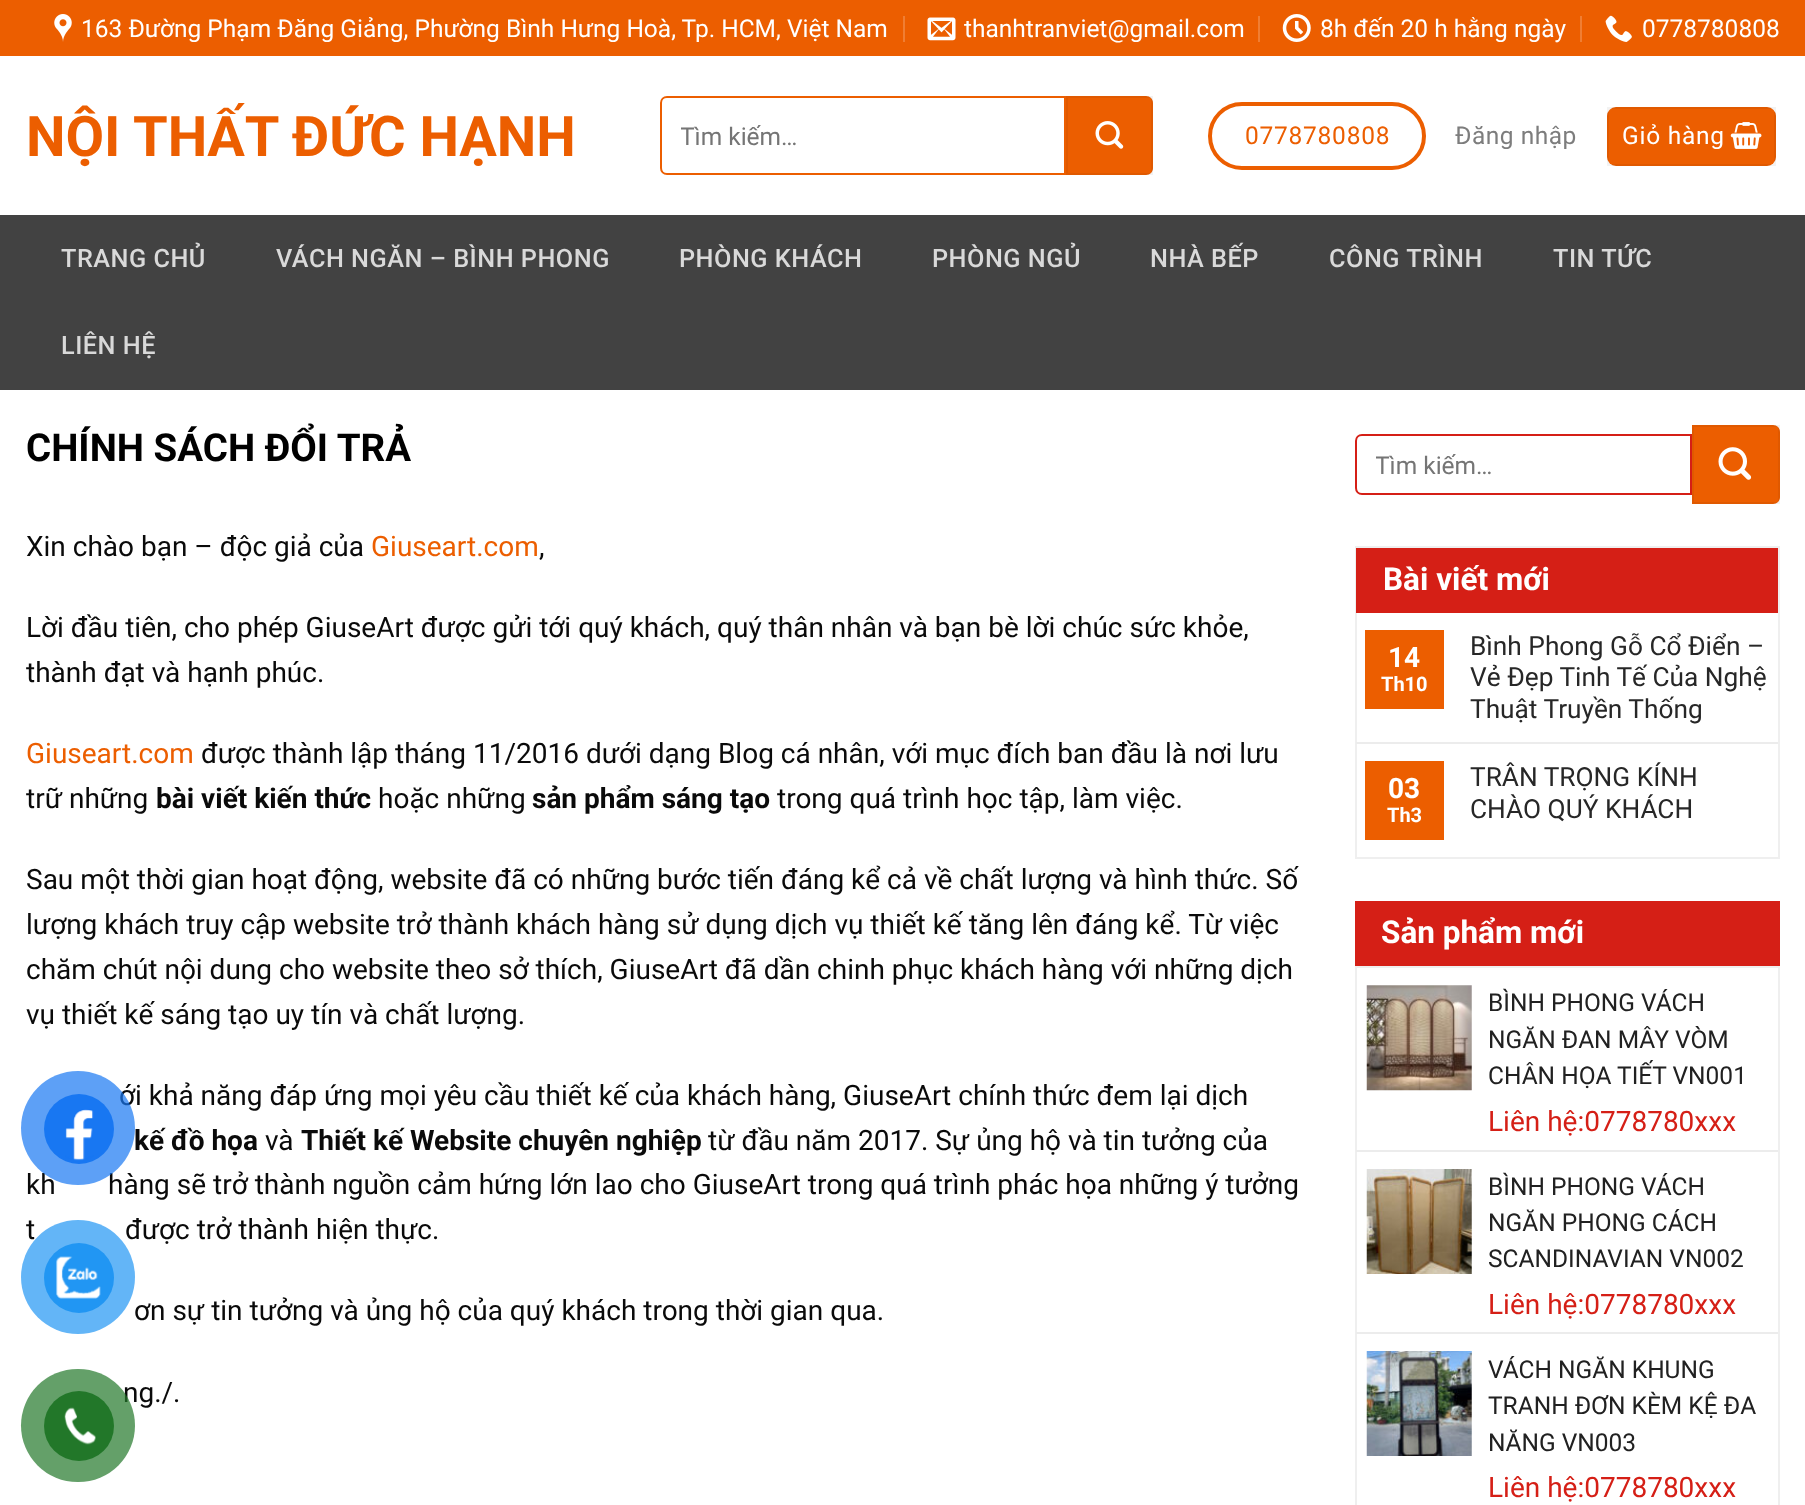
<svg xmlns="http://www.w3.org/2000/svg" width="1805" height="1505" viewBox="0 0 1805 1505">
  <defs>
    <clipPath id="clip1"><rect x="681" y="123" width="359" height="28"/></clipPath>
    <clipPath id="clip2"><rect x="1376" y="452" width="290" height="28"/></clipPath>
  </defs>
  <rect width="100%" height="100%" fill="#ffffff"/>
  <rect x="0" y="0" width="1805" height="56" fill="#ec5e00"/>
  <image x="54" y="14" width="18" height="28" href="img1.png"/>
  <text x="81" y="37" font-family="Roboto" font-size="24.5" fill="#ffffff">163 Đường Phạm Đăng Giảng, Phường Bình Hưng Hoà, Tp. HCM, Việt Nam</text>
  <rect x="903" y="16" width="2" height="26" fill="#f07e33"/>
  <image x="927" y="17" width="29" height="24" href="img2.png"/>
  <text x="964" y="37" font-family="Roboto" font-size="24.5" fill="#ffffff">thanhtranviet@gmail.com</text>
  <rect x="1258" y="16" width="2" height="26" fill="#f07e33"/>
  <image x="1282" y="14" width="29" height="28" href="img3.png"/>
  <text x="1320" y="37" font-family="Roboto" font-size="24.5" fill="#ffffff">8h đến 20 h hằng ngày</text>
  <rect x="1580" y="16" width="2" height="26" fill="#f07e33"/>
  <image x="1605" y="15" width="27" height="27" href="img4.png"/>
  <text x="1642" y="37" font-family="Roboto" font-size="24.5" fill="#ffffff">0778780808</text>
  <text x="26" y="156" font-family="Roboto" font-size="56" font-weight="bold" fill="#ec5e00">NỘI THẤT ĐỨC HẠNH</text>
  <path d="M667 97H1065V174H667C663.5 174 661 171.5 661 168V103C661 99.5 663.5 97 667 97Z" fill="none" stroke="#ec5e00" stroke-width="2"/>
  <g clip-path="url(#clip1)">
    <text x="680" y="145" font-family="Roboto" font-size="24.5" fill="#757575">Tìm kiếm…</text>
  </g>
  <path d="M1066 96H1146C1150 96 1153 99 1153 103V168C1153 172 1150 175 1146 175H1066Z" fill="#ec5e00"/>
  <rect x="1067" y="97" width="85" height="77" fill="none" stroke="#000000" stroke-opacity="0.05" stroke-width="2"/>
  <image x="1095" y="121" width="29" height="28" href="img5.png"/>
  <rect x="1210" y="104" width="214" height="64" rx="32" fill="none" stroke="#ec5e00" stroke-width="4"/>
  <text x="1245" y="144" font-family="Roboto" font-size="24.5" letter-spacing="0.75" fill="#ec5e00">0778780808</text>
  <text x="1455" y="144" font-family="Roboto" font-size="24.5" letter-spacing="0.5" fill="#7d7d7d">Đăng nhập</text>
  <rect x="1607" y="107" width="169" height="59" rx="9" fill="#ec5e00"/>
  <rect x="1608" y="108" width="167" height="57" fill="none" stroke="#000000" stroke-opacity="0.05" stroke-width="2"/>
  <text x="1622" y="144" font-family="Roboto" font-size="24.5" letter-spacing="0.75" fill="#ffffff">Giỏ hàng</text>
  <image x="1730" y="122" width="32" height="27" href="img6.png"/>
  <rect x="0" y="215" width="1805" height="175" fill="#424242"/>
  <text x="61" y="267" font-family="Roboto" font-size="25.25" font-weight="500" letter-spacing="0.5" fill="#d9d9d9">TRANG CHỦ</text>
  <text x="276" y="267" font-family="Roboto" font-size="25.25" font-weight="500" letter-spacing="0.5" fill="#d9d9d9">VÁCH NGĂN – BÌNH PHONG</text>
  <text x="679" y="267" font-family="Roboto" font-size="25.25" font-weight="500" letter-spacing="0.5" fill="#d9d9d9">PHÒNG KHÁCH</text>
  <text x="932" y="267" font-family="Roboto" font-size="25.25" font-weight="500" letter-spacing="0.5" fill="#d9d9d9">PHÒNG NGỦ</text>
  <text x="1150" y="267" font-family="Roboto" font-size="25.25" font-weight="500" letter-spacing="0.5" fill="#d9d9d9">NHÀ BẾP</text>
  <text x="1329" y="267" font-family="Roboto" font-size="25.25" font-weight="500" letter-spacing="0.5" fill="#d9d9d9">CÔNG TRÌNH</text>
  <text x="1553" y="267" font-family="Roboto" font-size="25.25" font-weight="500" letter-spacing="0.5" fill="#d9d9d9">TIN TỨC</text>
  <text x="61" y="354" font-family="Roboto" font-size="25.25" font-weight="500" letter-spacing="0.5" fill="#d9d9d9">LIÊN HỆ</text>
  <text x="26" y="461" font-family="Roboto" font-size="38.5" font-weight="bold" fill="#000000">CHÍNH SÁCH ĐỔI TRẢ</text>
  <text x="26" y="556" font-family="Roboto" font-size="28" fill="#0a0a0a">Xin chào bạn – độc giả của</text>
  <text x="371" y="556" font-family="Roboto" font-size="28" fill="#ec5e00">Giuseart.com</text>
  <text x="539" y="556" font-family="Roboto" font-size="28" fill="#0a0a0a">,</text>
  <text x="26" y="637" font-family="Roboto" font-size="28" fill="#0a0a0a">Lời đầu tiên, cho phép GiuseArt được gửi tới quý khách, quý thân nhân và bạn bè lời chúc sức khỏe,</text>
  <text x="26" y="682" font-family="Roboto" font-size="28" fill="#0a0a0a">thành đạt và hạnh phúc.</text>
  <text x="26" y="763" font-family="Roboto" font-size="28" fill="#ec5e00">Giuseart.com</text>
  <text x="201" y="763" font-family="Roboto" font-size="28" fill="#0a0a0a">được thành lập tháng 11/2016 dưới dạng Blog cá nhân, với mục đích ban đầu là nơi lưu</text>
  <text x="26" y="808" font-family="Roboto" font-size="28" fill="#0a0a0a">trữ những</text>
  <text x="156" y="808" font-family="Roboto" font-size="28" font-weight="bold" fill="#0a0a0a">bài viết kiến thức</text>
  <text x="378" y="808" font-family="Roboto" font-size="28" fill="#0a0a0a">hoặc những</text>
  <text x="532" y="808" font-family="Roboto" font-size="28" font-weight="bold" fill="#0a0a0a">sản phẩm sáng tạo</text>
  <text x="777" y="808" font-family="Roboto" font-size="28" fill="#0a0a0a">trong quá trình học tập, làm việc.</text>
  <text x="26" y="889" font-family="Roboto" font-size="28" fill="#0a0a0a">Sau một thời gian hoạt động, website đã có những bước tiến đáng kể cả về chất lượng và hình thức. Số</text>
  <text x="26" y="934" font-family="Roboto" font-size="28" fill="#0a0a0a">lượng khách truy cập website trở thành khách hàng sử dụng dịch vụ thiết kế tăng lên đáng kể. Từ việc</text>
  <text x="26" y="979" font-family="Roboto" font-size="28" fill="#0a0a0a">chăm chút nội dung cho website theo sở thích, GiuseArt đã dần chinh phục khách hàng với những dịch</text>
  <text x="26" y="1024" font-family="Roboto" font-size="28" fill="#0a0a0a">vụ thiết kế sáng tạo uy tín và chất lượng.</text>
  <text x="119" y="1105" font-family="Roboto" font-size="28" fill="#0a0a0a">ới khả năng đáp ứng mọi yêu cầu thiết kế của khách hàng, GiuseArt chính thức đem lại dịch</text>
  <text x="134" y="1150" font-family="Roboto" font-size="28" font-weight="bold" fill="#0a0a0a">kế đồ họa</text>
  <text x="265" y="1150" font-family="Roboto" font-size="28" fill="#0a0a0a">và</text>
  <text x="301" y="1150" font-family="Roboto" font-size="28" font-weight="bold" fill="#0a0a0a">Thiết kế Website chuyên nghiệp</text>
  <text x="708" y="1150" font-family="Roboto" font-size="28" fill="#0a0a0a">từ đầu năm 2017. Sự ủng hộ và tin tưởng của</text>
  <text x="26" y="1194" font-family="Roboto" font-size="28" fill="#0a0a0a">kh</text>
  <text x="108" y="1194" font-family="Roboto" font-size="28" fill="#0a0a0a">hàng sẽ trở thành nguồn cảm hứng lớn lao cho GiuseArt trong quá trình phác họa những ý tưởng</text>
  <text x="26" y="1239" font-family="Roboto" font-size="28" fill="#0a0a0a">t</text>
  <text x="125" y="1239" font-family="Roboto" font-size="28" fill="#0a0a0a">được trở thành hiện thực.</text>
  <text x="134" y="1320" font-family="Roboto" font-size="28" fill="#0a0a0a">ơn sự tin tưởng và ủng hộ của quý khách trong thời gian qua.</text>
  <text x="123" y="1402" font-family="Roboto" font-size="28" fill="#0a0a0a">ng./.</text>
  <path d="M1362 435H1691V494H1362C1358.5 494 1356 491.5 1356 488V441C1356 437.5 1358.5 435 1362 435Z" fill="none" stroke="#d51f16" stroke-width="2"/>
  <g clip-path="url(#clip2)">
    <text x="1375" y="474" font-family="Roboto" font-size="24.5" fill="#757575">Tìm kiếm…</text>
  </g>
  <path d="M1692 425H1773C1777 425 1780 428 1780 432V497C1780 501 1777 504 1773 504H1692Z" fill="#ec5e00"/>
  <rect x="1693" y="426" width="86" height="77" fill="none" stroke="#000000" stroke-opacity="0.05" stroke-width="2"/>
  <image x="1718" y="447" width="34" height="33" href="img7.png"/>
  <rect x="1356" y="547" width="423" height="311" fill="none" stroke="#efefef" stroke-width="2"/>
  <rect x="1356" y="548" width="422" height="65" fill="#d51f16"/>
  <text x="1383" y="590" font-family="Roboto" font-size="31.5" font-weight="bold" fill="#ffffff">Bài viết mới</text>
  <rect x="1365" y="630" width="79" height="79" fill="#ec5e00"/>
  <text x="1388" y="667" font-family="Roboto" font-size="28" font-weight="bold" fill="#ffffff">14</text>
  <text x="1381" y="691" font-family="Roboto" font-size="20" font-weight="bold" fill="#ffffff">Th10</text>
  <text x="1470" y="655" font-family="Roboto" font-size="26.25" fill="#272727">Bình Phong Gỗ Cổ Điển –</text>
  <text x="1470" y="686" font-family="Roboto" font-size="26.25" fill="#272727">Vẻ Đẹp Tinh Tế Của Nghệ</text>
  <text x="1470" y="718" font-family="Roboto" font-size="26.25" fill="#272727">Thuật Truyền Thống</text>
  <rect x="1356" y="742" width="422" height="2" fill="#ececec"/>
  <rect x="1365" y="761" width="79" height="79" fill="#ec5e00"/>
  <text x="1388" y="798" font-family="Roboto" font-size="28" font-weight="bold" fill="#ffffff">03</text>
  <text x="1387" y="822" font-family="Roboto" font-size="20" font-weight="bold" fill="#ffffff">Th3</text>
  <text x="1470" y="786" font-family="Roboto" font-size="26.25" fill="#272727">TRÂN TRỌNG KÍNH</text>
  <text x="1470" y="818" font-family="Roboto" font-size="26.25" fill="#272727">CHÀO QUÝ KHÁCH</text>
  <rect x="1355" y="901" width="425" height="65" fill="#d51f16"/>
  <text x="1381" y="943" font-family="Roboto" font-size="31.5" font-weight="bold" fill="#ffffff">Sản phẩm mới</text>
  <rect x="1356" y="967" width="423" height="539" fill="none" stroke="#efefef" stroke-width="2"/>
  <image x="1366" y="985" width="106" height="106" href="img8.png"/>
  <text x="1488" y="1011" font-family="Roboto" font-size="24.5" fill="#212121">BÌNH PHONG VÁCH</text>
  <text x="1488" y="1048" font-family="Roboto" font-size="24.5" fill="#212121">NGĂN ĐAN MÂY VÒM</text>
  <text x="1488" y="1084" font-family="Roboto" font-size="24.5" fill="#212121">CHÂN HỌA TIẾT VN001</text>
  <text x="1488" y="1131" font-family="Roboto" font-size="28" fill="#d51f16">Liên hệ:0778780xxx</text>
  <rect x="1356" y="1150" width="422" height="2" fill="#ececec"/>
  <image x="1366" y="1169" width="106" height="105" href="img9.png"/>
  <text x="1488" y="1195" font-family="Roboto" font-size="24.5" fill="#212121">BÌNH PHONG VÁCH</text>
  <text x="1488" y="1231" font-family="Roboto" font-size="24.5" fill="#212121">NGĂN PHONG CÁCH</text>
  <text x="1488" y="1267" font-family="Roboto" font-size="24.5" fill="#212121">SCANDINAVIAN VN002</text>
  <text x="1488" y="1314" font-family="Roboto" font-size="28" fill="#d51f16">Liên hệ:0778780xxx</text>
  <rect x="1356" y="1332" width="422" height="2" fill="#ececec"/>
  <image x="1366" y="1351" width="106" height="105" href="img10.png"/>
  <text x="1488" y="1378" font-family="Roboto" font-size="24.5" fill="#212121">VÁCH NGĂN KHUNG</text>
  <text x="1488" y="1414" font-family="Roboto" font-size="24.5" fill="#212121">TRANH ĐƠN KÈM KỆ ĐA</text>
  <text x="1488" y="1451" font-family="Roboto" font-size="24.5" fill="#212121">NĂNG VN003</text>
  <text x="1488" y="1497" font-family="Roboto" font-size="28" fill="#d51f16">Liên hệ:0778780xxx</text>
  <circle cx="78" cy="1128" r="57" fill="#1877f2" fill-opacity="0.7"/>
  <circle cx="79" cy="1129" r="35" fill="#1877f2"/>
  <image x="65" y="1109" width="29" height="52" href="img11.png"/>
  <circle cx="78" cy="1277" r="57" fill="#2196f3" fill-opacity="0.7"/>
  <circle cx="79" cy="1278" r="35" fill="#2196f3"/>
  <image x="56" y="1256" width="45" height="43" href="img12.png"/>
  <rect x="21" y="1369" width="114" height="113" rx="56.5" fill="#227729" fill-opacity="0.7"/>
  <circle cx="79" cy="1426" r="35" fill="#227729"/>
  <image x="64" y="1407" width="32" height="38" href="img13.png"/>
</svg>
